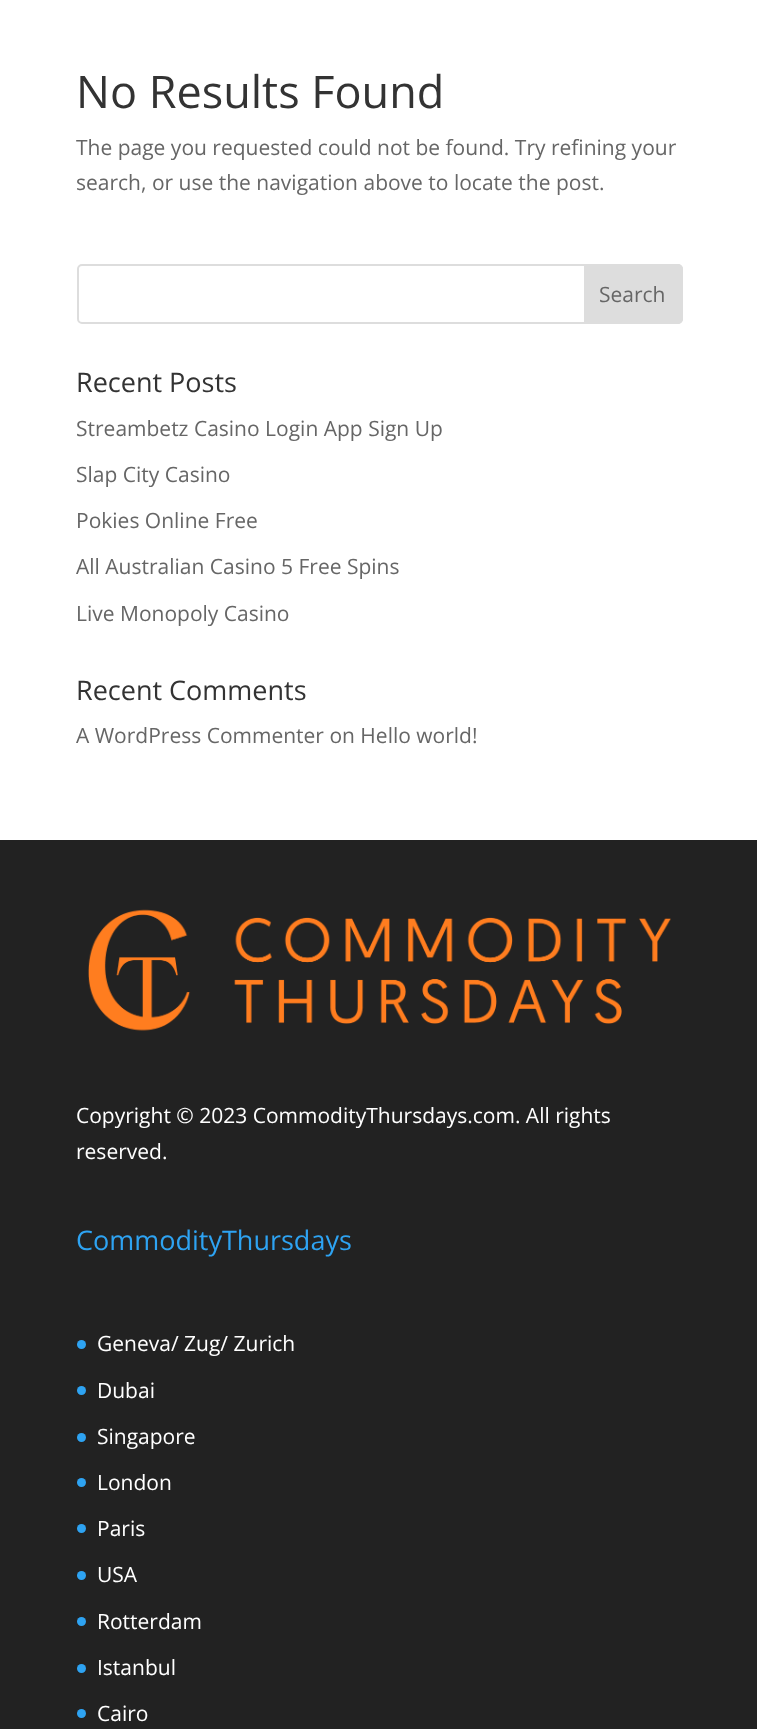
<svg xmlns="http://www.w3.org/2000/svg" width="757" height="1729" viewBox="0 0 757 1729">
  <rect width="100%" height="100%" fill="#ffffff"/>
  <text x="76" y="108" font-family="Open Sans" font-size="45" fill="#333333">No Results Found</text>
  <text x="76" y="155" font-family="Open Sans" font-size="21" fill="#666666">The page you requested could not be found. Try refining your</text>
  <text x="76" y="190" font-family="Open Sans" font-size="21" fill="#666666">search, or use the navigation above to locate the post.</text>
  <rect x="78" y="265" width="604" height="58" rx="4" fill="none" stroke="#dddddd" stroke-width="2"/>
  <path d="M585 265H678C680 265 682 267 682 269V319C682 321 680 323 678 323H585Z" fill="#dddddd" stroke="#dddddd" stroke-width="2"/>
  <text x="599" y="302" font-family="Open Sans" font-size="21" fill="#666666">Search</text>
  <text x="76" y="392" font-family="Open Sans" font-size="27" fill="#333333">Recent Posts</text>
  <text x="76" y="436" font-family="Open Sans" font-size="21" fill="#666666">Streambetz Casino Login App Sign Up</text>
  <text x="76" y="482" font-family="Open Sans" font-size="21" fill="#666666">Slap City Casino</text>
  <text x="76" y="528" font-family="Open Sans" font-size="21" fill="#666666">Pokies Online Free</text>
  <text x="76" y="574" font-family="Open Sans" font-size="21" fill="#666666">All Australian Casino 5 Free Spins</text>
  <text x="76" y="621" font-family="Open Sans" font-size="21" fill="#666666">Live Monopoly Casino</text>
  <text x="76" y="700" font-family="Open Sans" font-size="27" fill="#333333">Recent Comments</text>
  <text x="76" y="743" font-family="Open Sans" font-size="21" fill="#666666">A WordPress Commenter on Hello world!</text>
  <rect x="0" y="840" width="757" height="889" fill="#222222"/>
  <image x="88" y="909" width="583" height="122" href="img1.png"/>
  <text x="76" y="1123" font-family="Open Sans" font-size="21" fill="#ffffff">Copyright © 2023 CommodityThursdays.com. All rights</text>
  <text x="76" y="1159" font-family="Open Sans" font-size="21" fill="#ffffff">reserved.</text>
  <text x="76" y="1250" font-family="Open Sans" font-size="27" fill="#2ea3f2">CommodityThursdays</text>
  <circle cx="81.5" cy="1344.5" r="4.5" fill="#2ea3f2"/>
  <text x="97" y="1351" font-family="Open Sans" font-size="21" fill="#ffffff">Geneva/ Zug/ Zurich</text>
  <circle cx="81.5" cy="1390.5" r="4.5" fill="#2ea3f2"/>
  <text x="97" y="1398" font-family="Open Sans" font-size="21" fill="#ffffff">Dubai</text>
  <circle cx="81.5" cy="1437.5" r="4.5" fill="#2ea3f2"/>
  <text x="97" y="1444" font-family="Open Sans" font-size="21" fill="#ffffff">Singapore</text>
  <circle cx="81.5" cy="1482.5" r="4.5" fill="#2ea3f2"/>
  <text x="97" y="1490" font-family="Open Sans" font-size="21" fill="#ffffff">London</text>
  <circle cx="81.5" cy="1528.5" r="4.5" fill="#2ea3f2"/>
  <text x="97" y="1536" font-family="Open Sans" font-size="21" fill="#ffffff">Paris</text>
  <circle cx="81.5" cy="1575.5" r="4.5" fill="#2ea3f2"/>
  <text x="97" y="1582" font-family="Open Sans" font-size="21" fill="#ffffff">USA</text>
  <circle cx="81.5" cy="1621.5" r="4.5" fill="#2ea3f2"/>
  <text x="97" y="1629" font-family="Open Sans" font-size="21" fill="#ffffff">Rotterdam</text>
  <circle cx="81.5" cy="1668.5" r="4.5" fill="#2ea3f2"/>
  <text x="97" y="1675" font-family="Open Sans" font-size="21" fill="#ffffff">Istanbul</text>
  <circle cx="81.5" cy="1713.5" r="4.5" fill="#2ea3f2"/>
  <text x="97" y="1721" font-family="Open Sans" font-size="21" fill="#ffffff">Cairo</text>
</svg>
